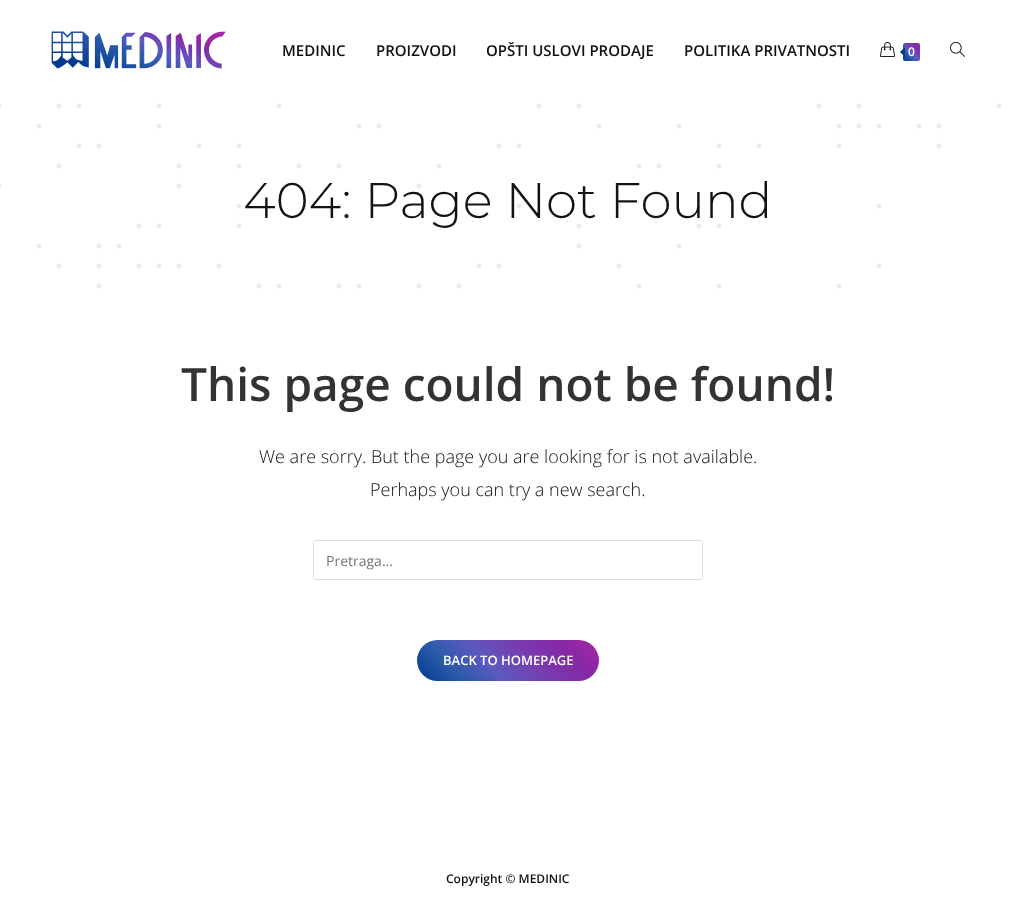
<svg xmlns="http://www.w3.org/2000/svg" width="1016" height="900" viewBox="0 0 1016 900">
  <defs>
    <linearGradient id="g1" gradientUnits="userSpaceOnUse" x1="903" y1="61" x2="920" y2="43"><stop offset="0" stop-color="#02398e"/><stop offset="0.3" stop-color="#285aa8"/><stop offset="0.46" stop-color="#5d59bf"/><stop offset="0.65" stop-color="#763db0"/><stop offset="0.84" stop-color="#8628a5"/><stop offset="1" stop-color="#a527a5"/></linearGradient>
    <linearGradient id="g2" gradientUnits="userSpaceOnUse" x1="452" y1="716" x2="564" y2="605"><stop offset="0" stop-color="#02398e"/><stop offset="0.2" stop-color="#285aa8"/><stop offset="0.4" stop-color="#5d59bf"/><stop offset="0.6" stop-color="#763db0"/><stop offset="0.8" stop-color="#8628a5"/><stop offset="1" stop-color="#a527a5"/></linearGradient>
  </defs>
  <rect width="100%" height="100%" fill="#ffffff"/>
  <image x="51" y="31" width="175" height="38" href="img1.png"/>
  <text x="282" y="56" font-family="Open Sans" font-size="15" font-weight="600" fill="#101213">MEDINIC</text>
  <text x="376" y="56" font-family="Open Sans" font-size="15" font-weight="600" fill="#101213">PROIZVODI</text>
  <text x="486" y="56" font-family="Open Sans" font-size="15" font-weight="600" fill="#101213">OPŠTI USLOVI PRODAJE</text>
  <text x="684" y="56" font-family="Open Sans" font-size="15" font-weight="600" fill="#101213">POLITIKA PRIVATNOSTI</text>
  <image x="880" y="41" width="15" height="16" href="img2.png"/>
  <rect x="903" y="43" width="17" height="18" rx="2" fill="url(#g1)"/>
  <path d="M905 47V57L900 52Z" fill="#02398e"/>
  <text x="908" y="56" font-family="Open Sans" font-size="12" font-weight="600" fill="#ffffff">0</text>
  <image x="950" y="41" width="15" height="16" href="img3.png"/>
  <image x="0" y="103" width="1002" height="186" href="img4.png"/>
  <text x="243" y="218" font-family="Montserrat" font-size="50" font-weight="300" fill="#101213">404: Page Not Found</text>
  <text x="181" y="401" font-family="Open Sans" font-size="46" font-weight="600" fill="#333333">This page could not be found!</text>
  <text x="259" y="463" font-family="Open Sans" font-size="18" font-weight="300" fill="#101213">We are sorry. But the page you are looking for is not available.</text>
  <text x="370" y="496" font-family="Open Sans" font-size="18" font-weight="300" fill="#101213">Perhaps you can try a new search.</text>
  <rect x="313.5" y="540.5" width="389" height="39" rx="2.5" fill="none" stroke="#dddddd"/>
  <text x="326" y="566" font-family="Open Sans" font-size="14" fill="#757575">Pretraga...</text>
  <rect x="417" y="640" width="182" height="41" rx="20.5" fill="url(#g2)"/>
  <text x="443" y="665" font-family="Open Sans" font-size="13" font-weight="600" fill="#ffffff">BACK TO HOMEPAGE</text>
  <text x="446" y="883" font-family="Open Sans" font-size="12" font-weight="600" fill="#101213">Copyright © MEDINIC</text>
</svg>
